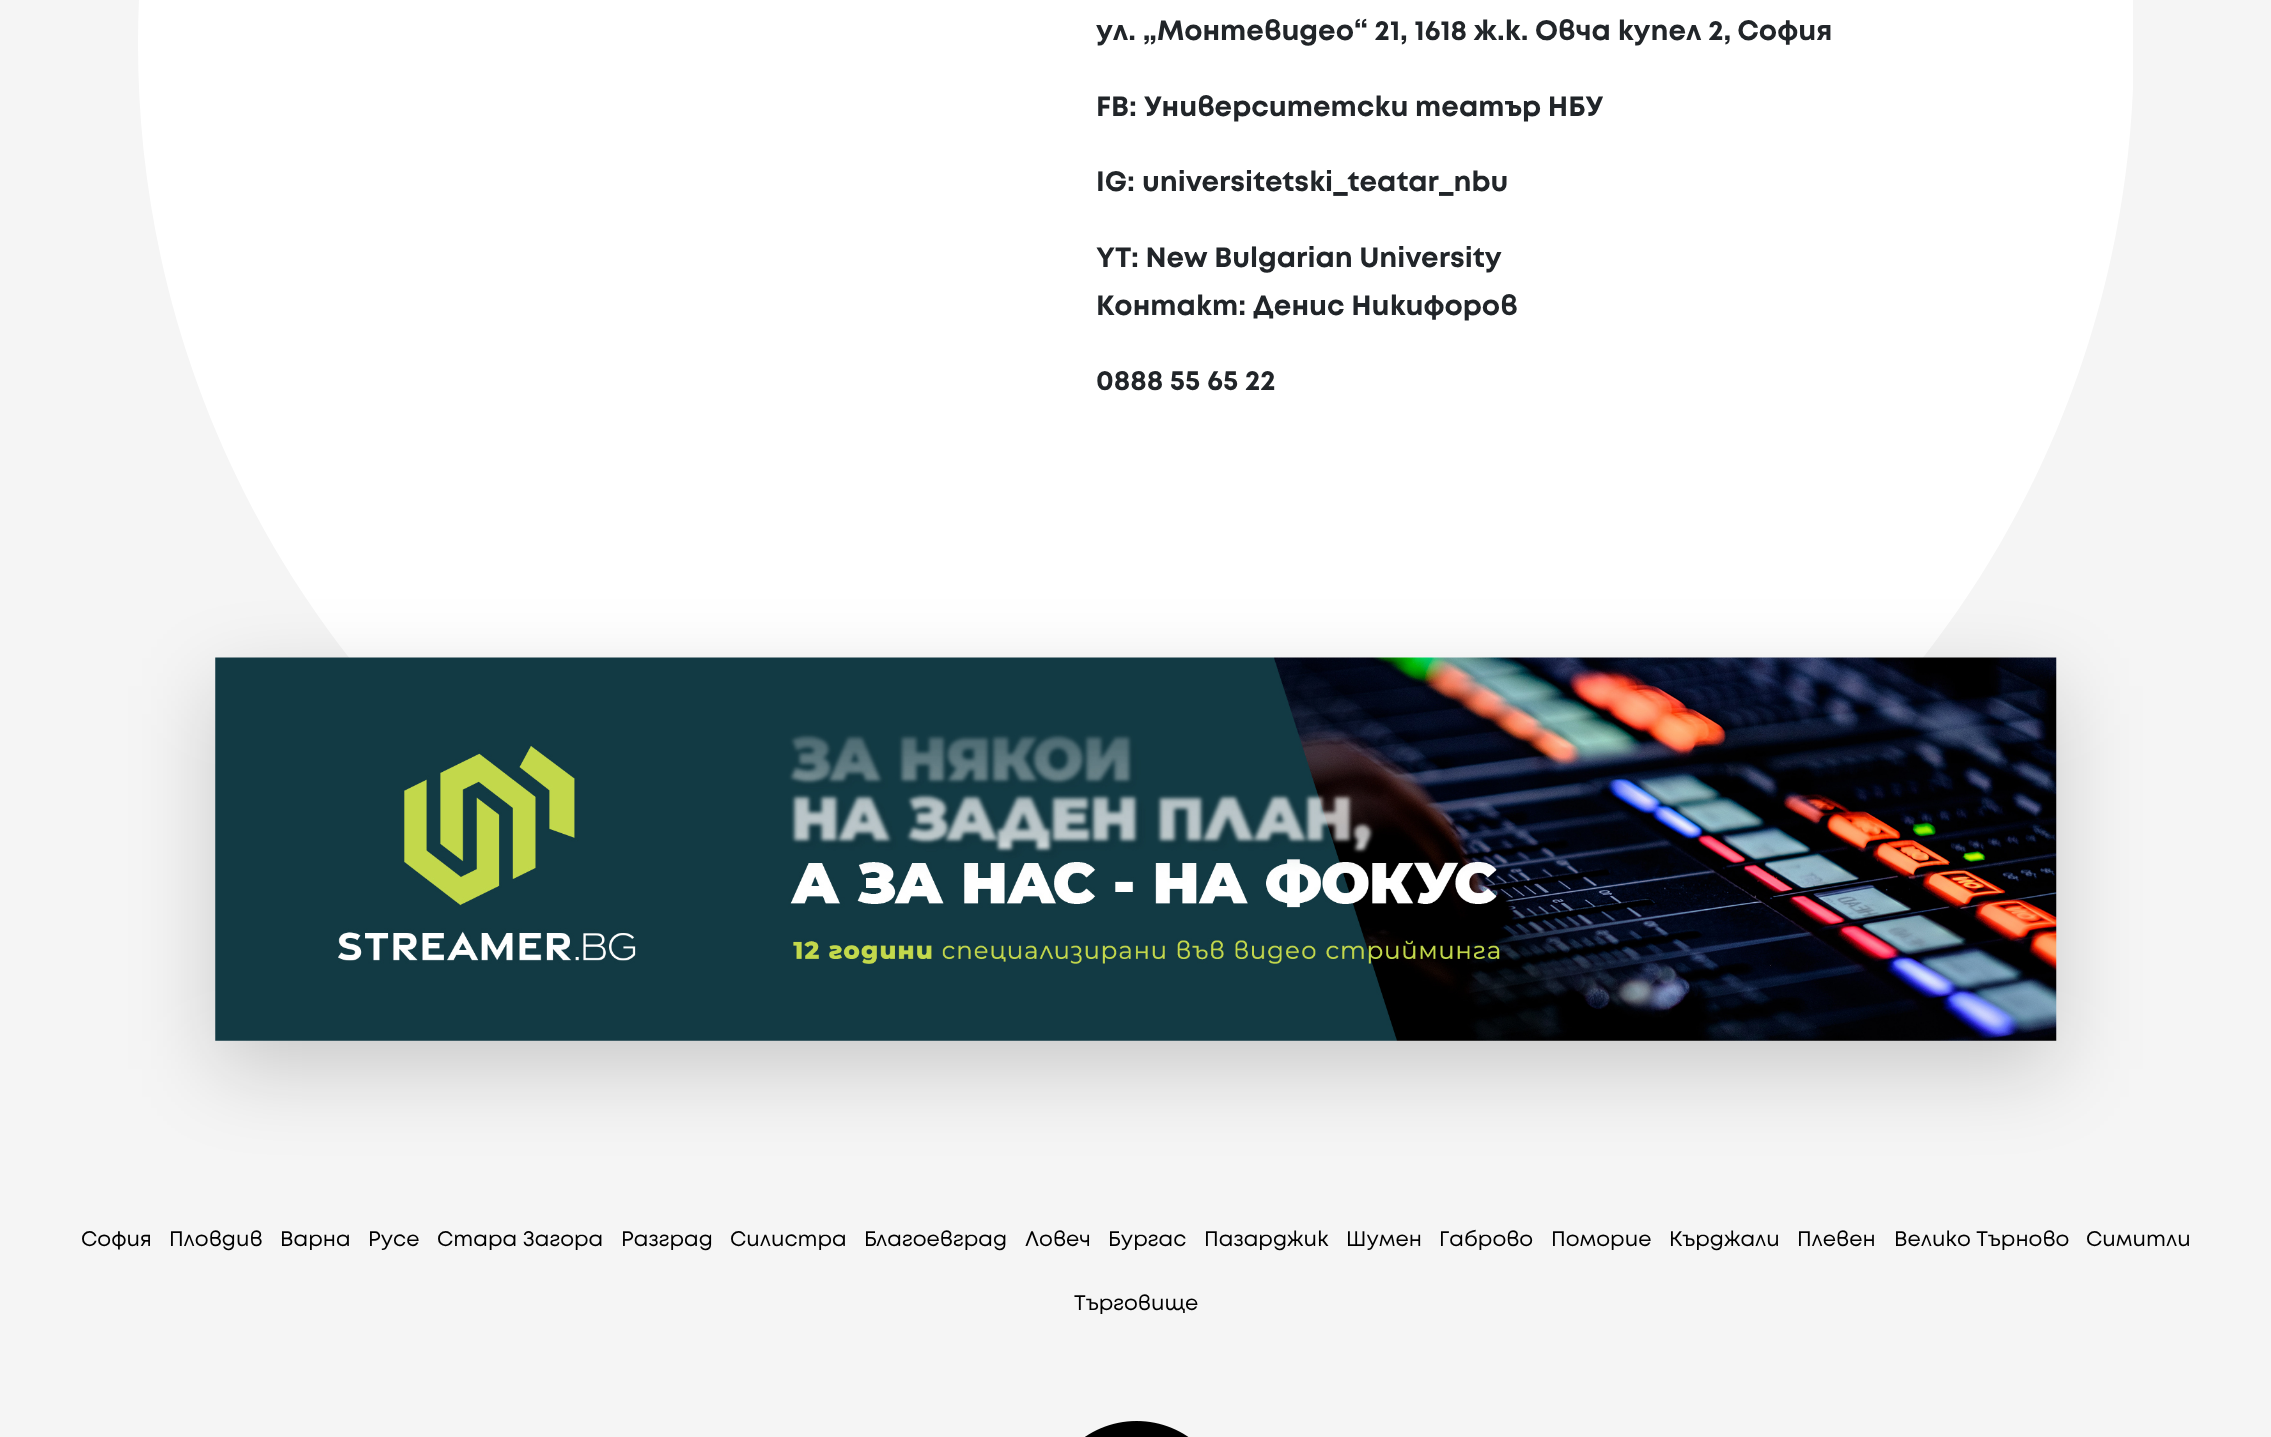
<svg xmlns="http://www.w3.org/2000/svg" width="2271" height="1437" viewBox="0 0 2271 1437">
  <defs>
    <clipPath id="clip1"><rect x="138" y="0" width="1995" height="1041"/></clipPath>
    <filter id="blur1" x="-50%" y="-200%" width="200%" height="500%"><feGaussianBlur stdDeviation="42"/></filter>
  </defs>
  <rect width="100%" height="100%" fill="#f5f5f5"/>
  <g clip-path="url(#clip1)">
    <path d="M2134 44C2134 595 1687 1042 1136 1042C585 1042 138 595 138 44C138-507 585-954 1136-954C1687-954 2134-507 2134 44Z" fill="#ffffff"/>
  </g>
  <text x="1096" y="40" font-family="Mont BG" font-size="28" font-weight="bold" fill="#212529">ул. „Монтевидео“ 21, 1618 ж.к. Овча купел 2, София</text>
  <text x="1096" y="116" font-family="Mont BG" font-size="28" font-weight="bold" fill="#212529">FB:</text>
  <text x="1144" y="116" font-family="Mont BG" font-size="28" font-weight="bold" fill="#212529">Университетски театър НБУ</text>
  <text x="1096" y="191" font-family="Mont BG" font-size="28" font-weight="bold" fill="#212529">IG:</text>
  <text x="1142" y="191" font-family="Mont BG" font-size="28" font-weight="bold" fill="#212529">universitetski_teatar_nbu</text>
  <text x="1096" y="267" font-family="Mont BG" font-size="28" font-weight="bold" fill="#212529">YT: New Bulgarian University</text>
  <text x="1096" y="315" font-family="Mont BG" font-size="28" font-weight="bold" fill="#212529">Контакт: Денис Никифоров</text>
  <text x="1096" y="390" font-family="Mont BG" font-size="28" font-weight="bold" fill="#212529">0888 55 65 22</text>
  <rect x="215" y="686" width="1841" height="383" fill="#000000" fill-opacity="0.18" filter="url(#blur1)"/>
  <image x="215" y="657" width="1842" height="384" href="img1.png"/>
  <text x="81" y="1246" font-family="Mont BG" font-size="21" fill="#000000">София</text>
  <text x="169" y="1246" font-family="Mont BG" font-size="21" fill="#000000">Пловдив</text>
  <text x="280" y="1246" font-family="Mont BG" font-size="21" fill="#000000">Варна</text>
  <text x="368" y="1246" font-family="Mont BG" font-size="21" fill="#000000">Русе</text>
  <text x="437" y="1246" font-family="Mont BG" font-size="21" fill="#000000">Стара Загора</text>
  <text x="621" y="1246" font-family="Mont BG" font-size="21" fill="#000000">Разград</text>
  <text x="730" y="1246" font-family="Mont BG" font-size="21" fill="#000000">Силистра</text>
  <text x="864" y="1246" font-family="Mont BG" font-size="21" fill="#000000">Благоевград</text>
  <text x="1025" y="1246" font-family="Mont BG" font-size="21" fill="#000000">Ловеч</text>
  <text x="1108" y="1246" font-family="Mont BG" font-size="21" fill="#000000">Бургас</text>
  <text x="1204" y="1246" font-family="Mont BG" font-size="21" fill="#000000">Пазарджик</text>
  <text x="1346" y="1246" font-family="Mont BG" font-size="21" fill="#000000">Шумен</text>
  <text x="1439" y="1246" font-family="Mont BG" font-size="21" fill="#000000">Габрово</text>
  <text x="1551" y="1246" font-family="Mont BG" font-size="21" fill="#000000">Поморие</text>
  <text x="1669" y="1246" font-family="Mont BG" font-size="21" fill="#000000">Кърджали</text>
  <text x="1797" y="1246" font-family="Mont BG" font-size="21" fill="#000000">Плевен</text>
  <text x="1894" y="1246" font-family="Mont BG" font-size="21" fill="#000000">Велико Търново</text>
  <text x="2086" y="1246" font-family="Mont BG" font-size="21" fill="#000000">Симитли</text>
  <text x="1074" y="1310" font-family="Mont BG" font-size="21" fill="#000000">Tърговище</text>
  <image x="1085" y="1421" width="104" height="16" href="img2.png"/>
</svg>
